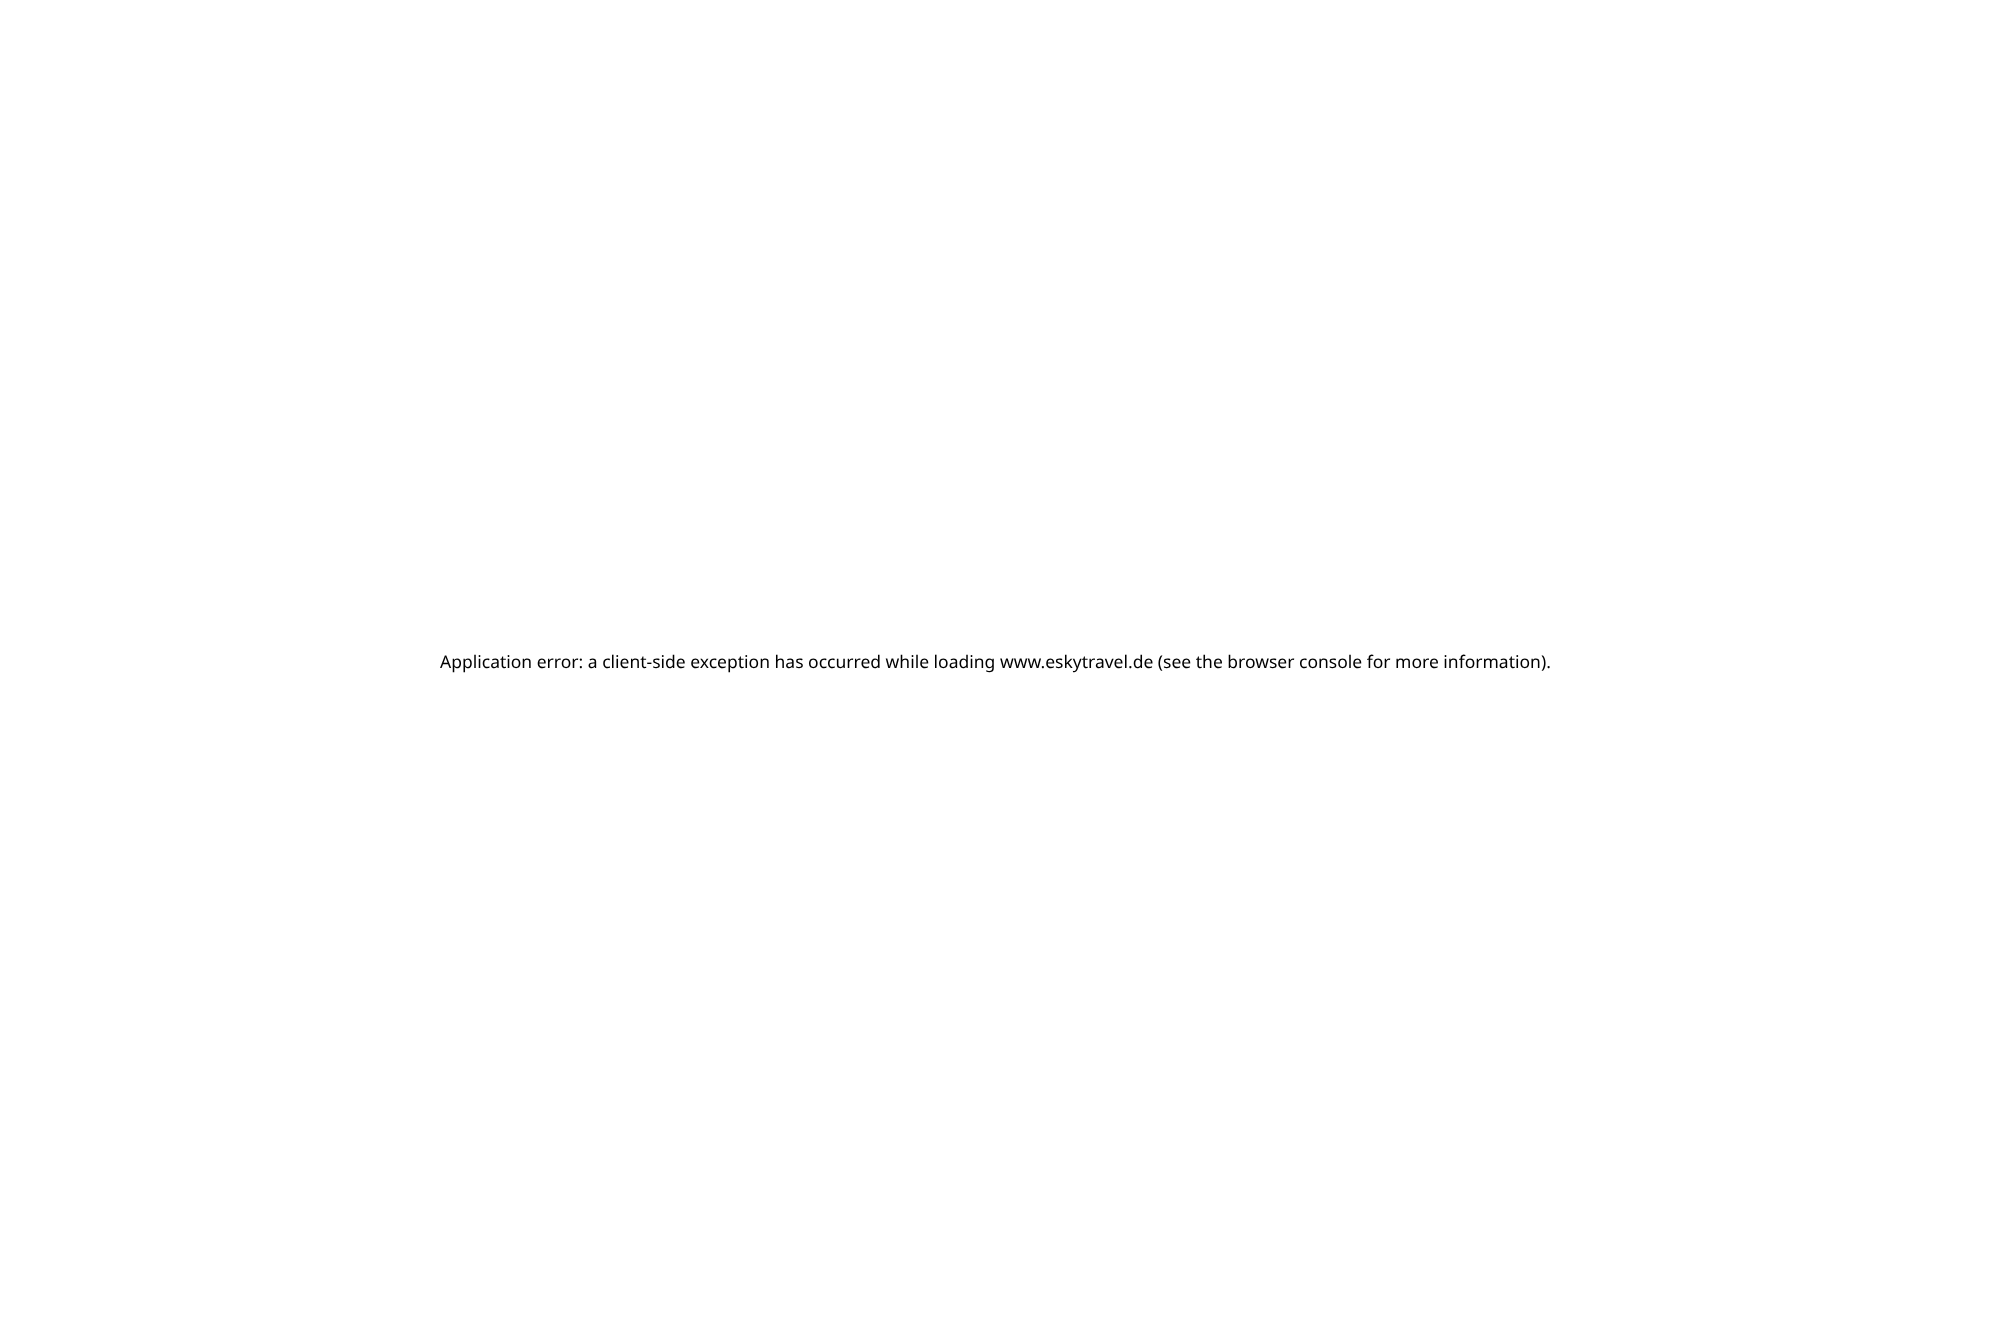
<svg xmlns="http://www.w3.org/2000/svg" width="1990" height="1323" viewBox="0 0 1990 1323">
  <rect width="100%" height="100%" fill="#ffffff"/>
  <text x="440" y="668" font-family="Noto Sans" font-size="17.5" fill="#000000">Application error: a client-side exception has occurred while loading www.eskytravel.de (see the browser console for more information).</text>
</svg>
